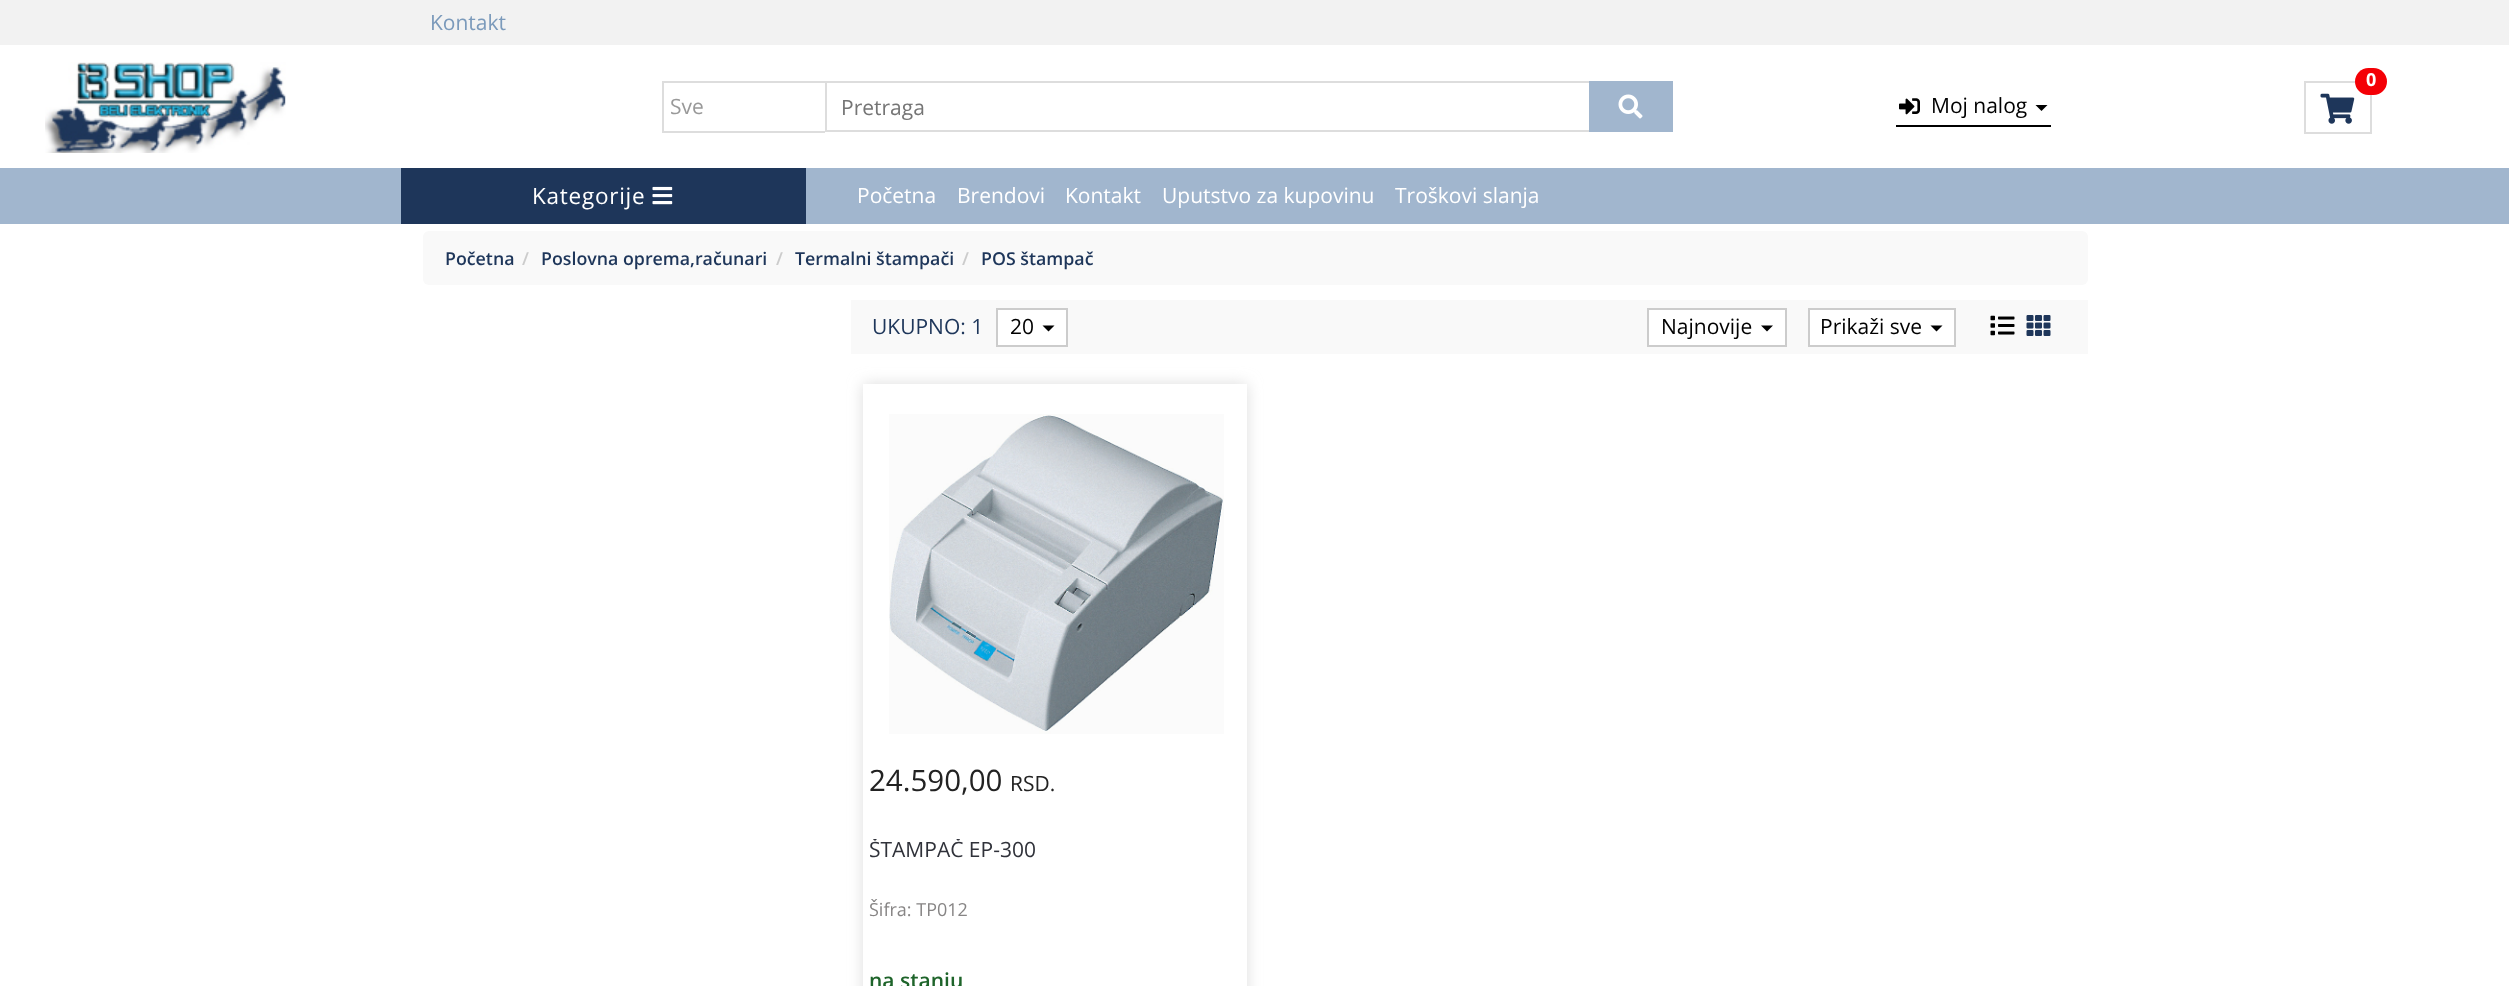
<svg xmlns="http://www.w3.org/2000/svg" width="2509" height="986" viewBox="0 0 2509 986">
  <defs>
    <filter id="blur1" x="-50%" y="-200%" width="200%" height="500%"><feGaussianBlur stdDeviation="7.5"/></filter>
    <clipPath id="clip1"><rect x="870" y="839" width="369" height="46"/></clipPath>
  </defs>
  <rect width="100%" height="100%" fill="#ffffff"/>
  <rect x="0" y="0" width="2509" height="45" fill="#f2f2f2"/>
  <text x="430" y="30" font-family="Open Sans" font-size="21" fill="#7b9abb">Kontakt</text>
  <image x="45" y="62" width="241" height="91" href="img1.png"/>
  <rect x="2305" y="82" width="66" height="51" fill="none" stroke="#dddddd" stroke-width="2"/>
  <rect x="2355" y="68" width="32" height="27" rx="13.5" fill="#f40006"/>
  <text x="2366" y="86" font-family="Open Sans" font-size="18" font-weight="bold" fill="#ffffff">0</text>
  <image x="2320" y="93" width="35" height="31" href="img2.png"/>
  <rect x="662" y="81" width="163" height="2" fill="#dddddd"/>
  <rect x="662" y="131" width="163" height="2" fill="#dddddd"/>
  <rect x="662" y="81" width="2" height="51" fill="#dddddd"/>
  <text x="670" y="114" font-family="Open Sans" font-size="21" fill="#999999">Sve</text>
  <rect x="826" y="82" width="816" height="49" fill="none" stroke="#dddddd" stroke-width="2"/>
  <text x="841" y="115" font-family="Open Sans" font-size="21" fill="#757575">Pretraga</text>
  <rect x="1589" y="81" width="84" height="51" fill="#a1b6ce"/>
  <image x="1618" y="94" width="25" height="25" href="img3.png"/>
  <rect x="1896" y="125" width="155" height="2" fill="#000000"/>
  <image x="1899" y="98" width="21" height="17" href="img4.png"/>
  <text x="1931" y="113" font-family="Open Sans" font-size="21" fill="#000000">Moj nalog</text>
  <path d="M2035.5 105H2047.5L2041.5 111Z" fill="#000000"/>
  <rect x="0" y="168" width="2509" height="56" fill="#a1b6ce"/>
  <rect x="401" y="168" width="405" height="56" fill="#1e365a"/>
  <text x="532" y="204" font-family="Open Sans" font-size="22.5" letter-spacing="0.75" fill="#ffffff">Kategorije</text>
  <image x="652" y="186" width="21" height="19" href="img5.png"/>
  <text x="857" y="203" font-family="Open Sans" font-size="21" fill="#ffffff">Početna</text>
  <text x="957" y="203" font-family="Open Sans" font-size="21" fill="#ffffff">Brendovi</text>
  <text x="1065" y="203" font-family="Open Sans" font-size="21" fill="#ffffff">Kontakt</text>
  <text x="1162" y="203" font-family="Open Sans" font-size="21" fill="#ffffff">Uputstvo za kupovinu</text>
  <text x="1395" y="203" font-family="Open Sans" font-size="21" fill="#ffffff">Troškovi slanja</text>
  <rect x="423" y="231" width="1665" height="54" rx="6" fill="#f9f9f9"/>
  <text x="445" y="265" font-family="Open Sans" font-size="17.8" font-weight="600" fill="#1e365a">Početna</text>
  <text x="522" y="265" font-family="Open Sans" font-size="17.8" font-weight="600" fill="#cccccc">/</text>
  <text x="541" y="265" font-family="Open Sans" font-size="17.8" font-weight="600" fill="#1e365a">Poslovna oprema,računari</text>
  <text x="776" y="265" font-family="Open Sans" font-size="17.8" font-weight="600" fill="#cccccc">/</text>
  <text x="795" y="265" font-family="Open Sans" font-size="17.8" font-weight="600" fill="#1e365a">Termalni štampači</text>
  <text x="962" y="265" font-family="Open Sans" font-size="17.8" font-weight="600" fill="#cccccc">/</text>
  <text x="981" y="265" font-family="Open Sans" font-size="17.8" font-weight="600" fill="#1e365a">POS štampač</text>
  <rect x="851" y="300" width="1237" height="54" fill="#f9f9f9"/>
  <text x="872" y="334" font-family="Open Sans" font-size="21" fill="#1e365a">UKUPNO: 1</text>
  <rect x="997" y="309" width="70" height="37" fill="#ffffff" stroke="#cccccc" stroke-width="2"/>
  <text x="1010" y="334" font-family="Open Sans" font-size="21" fill="#000000">20</text>
  <path d="M1042.5 325.5H1054.5L1048.5 331.5Z" fill="#000000"/>
  <rect x="1648" y="309" width="138" height="37" fill="#ffffff" stroke="#cccccc" stroke-width="2"/>
  <text x="1661" y="334" font-family="Open Sans" font-size="21" fill="#000000">Najnovije</text>
  <path d="M1761 325.5H1773L1767 331.5Z" fill="#000000"/>
  <rect x="1809" y="309" width="146" height="37" fill="#ffffff" stroke="#cccccc" stroke-width="2"/>
  <text x="1820" y="334" font-family="Open Sans" font-size="21" fill="#000000">Prikaži sve</text>
  <path d="M1930.5 325.5H1942.5L1936.5 331.5Z" fill="#000000"/>
  <image x="1990" y="315" width="25" height="21" href="img6.png"/>
  <image x="2026" y="315" width="25" height="21" href="img7.png"/>
  <rect x="863" y="384" width="384" height="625" fill="#dddddd" filter="url(#blur1)"/>
  <rect x="863" y="384" width="384" height="602" fill="#ffffff"/>
  <image x="889" y="414" width="335" height="320" href="img8.png"/>
  <text x="869" y="791" font-family="Open Sans" font-size="29.5" fill="#222222">24.590,00</text>
  <text x="1010" y="791" font-family="Open Sans" font-size="21" fill="#222222">RSD.</text>
  <g clip-path="url(#clip1)">
    <text x="869" y="857" font-family="Open Sans" font-size="21" fill="#30323a">ŠTAMPAČ EP-300</text>
  </g>
  <text x="869" y="916" font-family="Open Sans" font-size="18" fill="#878585">Šifra: TP012</text>
  <text x="869" y="988" font-family="Open Sans" font-size="21" font-weight="600" fill="#1e642a">na stanju</text>
</svg>
